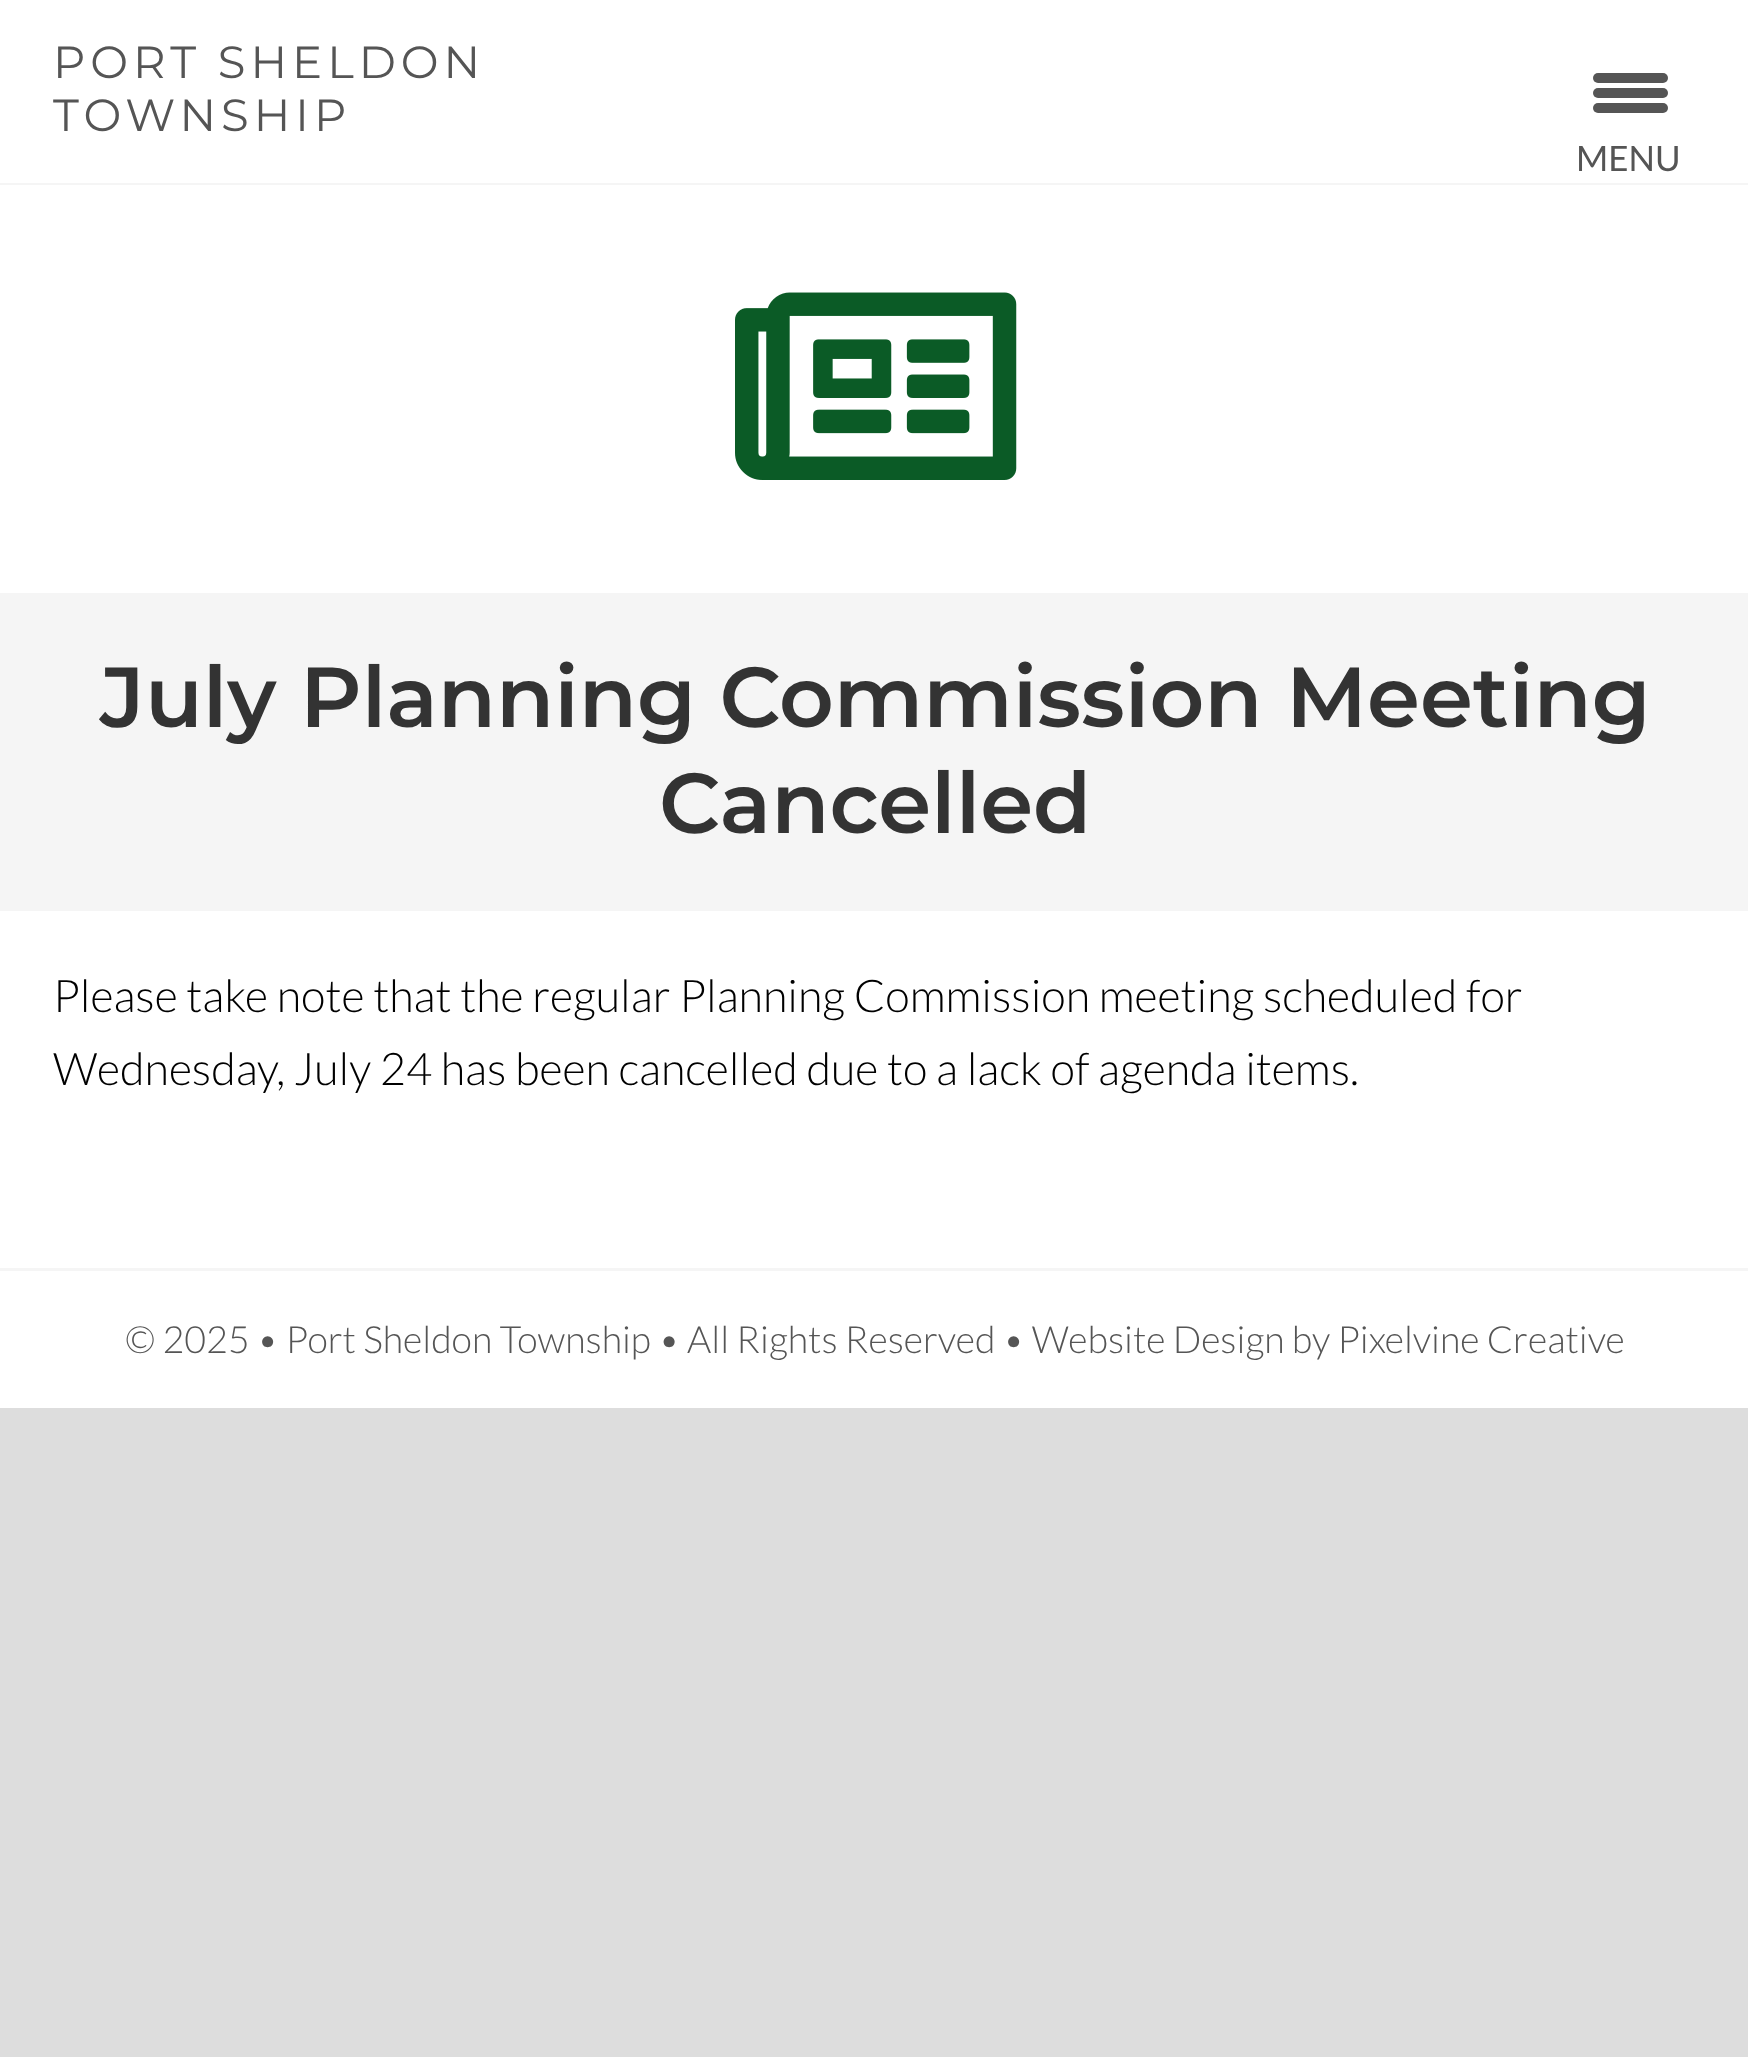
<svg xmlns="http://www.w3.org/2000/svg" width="1748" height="2057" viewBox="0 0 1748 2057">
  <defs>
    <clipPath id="clip1"><rect x="53" y="38" width="562" height="107"/></clipPath>
  </defs>
  <rect width="100%" height="100%" fill="#dddddd"/>
  <rect x="0" y="0" width="1748" height="1408" fill="#ffffff"/>
  <rect x="0" y="183" width="1748" height="2" fill="#f5f5f5"/>
  <text x="53" y="78" font-family="Montserrat" font-size="45" letter-spacing="5" fill="#555555">PORT SHELDON</text>
  <g clip-path="url(#clip1)">
    <text x="53" y="131" font-family="Montserrat" font-size="45" letter-spacing="5" fill="#555555">TOWNSHIP</text>
  </g>
  <rect x="0" y="593" width="1748" height="318" fill="#f5f5f5"/>
  <image x="735" y="292" width="282" height="188" href="img1.png"/>
  <text x="100" y="727" font-family="Montserrat" font-size="85" font-weight="600" fill="#333333">July Planning Commission Meeting</text>
  <text x="659" y="833" font-family="Montserrat" font-size="85" font-weight="600" fill="#333333">Cancelled</text>
  <text x="53" y="1012" font-family="Lato" font-size="45" font-weight="300" fill="#000000">Please take note that the regular Planning Commission meeting scheduled for</text>
  <text x="53" y="1085" font-family="Lato" font-size="45" font-weight="300" fill="#000000">Wednesday, July 24 has been cancelled due to a lack of agenda items.</text>
  <rect x="0" y="1268" width="1748" height="3" fill="#f5f5f5"/>
  <text x="125" y="1353" font-family="Lato" font-size="37.5" font-weight="300" fill="#555555">© 2025 • Port Sheldon Township • All Rights Reserved • Website Design by Pixelvine Creative</text>
  <rect x="1593" y="88" width="75" height="10" rx="5" fill="#555555"/>
  <rect x="1593" y="73" width="75" height="10" rx="5" fill="#555555"/>
  <rect x="1593" y="103" width="75" height="10" rx="5" fill="#555555"/>
  <text x="1576" y="171" font-family="Lato" font-size="35" fill="#555555">MENU</text>
</svg>
